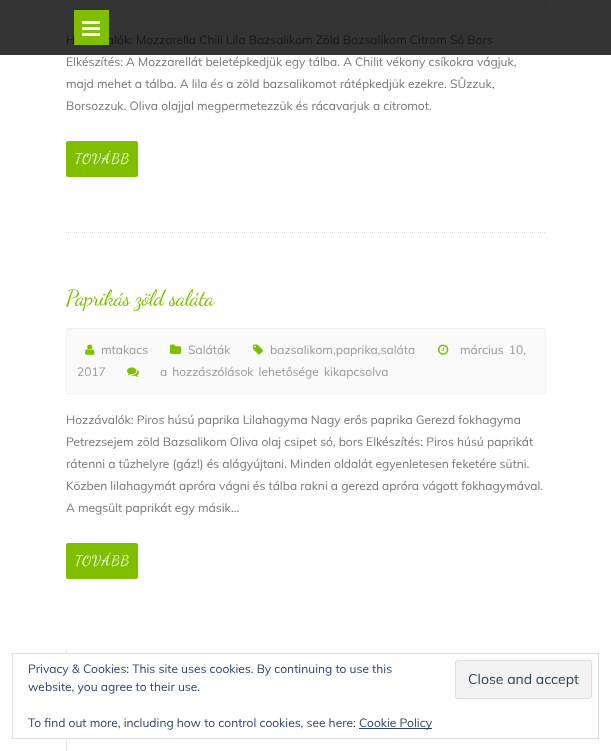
<svg xmlns="http://www.w3.org/2000/svg" width="611" height="751" viewBox="0 0 611 751">
  <rect width="100%" height="100%" fill="#ffffff"/>
  <rect x="0" y="0" width="611" height="55" fill="#333333"/>
  <rect x="66.5" y="-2.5" width="479" height="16" rx="1.5" fill="none" stroke="#303030"/>
  <text x="107" y="44" font-family="Muli" font-size="12" fill="#181818">alók: Mozzarella Chili Lila Bazsalikom Zöld Bazsalikom Citrom Só Bors</text>
  <rect x="74" y="10" width="35" height="35" fill="#7fbf00"/>
  <image x="82" y="21" width="18" height="15" href="img1.png"/>
  <path d="M66 232.5H546" fill="none" stroke="#dddddd" stroke-dasharray="1 1"/>
  <text x="66" y="44" font-family="Muli" font-size="12" fill="#181818">H</text>
  <text x="66" y="66" font-family="Muli" font-size="12" fill="#777777">Elkészítés: A Mozzarellát beletépkedjük egy tálba. A Chilit vékony csíkokra vágjuk,</text>
  <text x="66" y="88" font-family="Muli" font-size="12" fill="#777777">majd mehet a tálba. A lila és a zöld bazsalikomot rátépkedjük ezekre. SÛzzuk,</text>
  <text x="66" y="110" font-family="Muli" font-size="12" fill="#777777">Borsozzuk. Oliva olajjal megpermetezzük és rácavarjuk a citromot.</text>
  <rect x="66" y="141" width="72" height="36" rx="2" fill="#7fbf00"/>
  <text x="75" y="163" font-family="Dancing Script" font-size="14" letter-spacing="1" fill="#ffffff">TOVÁBB</text>
  <text x="66" y="305" font-family="Dancing Script" font-size="22" letter-spacing="-0.5" fill="#7fbf00">Paprikás zöld saláta</text>
  <rect x="66.5" y="328.5" width="479" height="65" rx="1.5" fill="#fafafa" stroke="#f1f1f1"/>
  <image x="438" y="344" width="11" height="11" href="img2.png"/>
  <text x="460" y="354" word-spacing="2" font-family="Muli" font-size="12" fill="#999999">március 10,</text>
  <text x="77" y="376" font-family="Muli" font-size="12" fill="#999999">2017</text>
  <image x="85" y="344" width="10" height="11" href="img3.png"/>
  <text x="101" y="354" font-family="Muli" font-size="12" fill="#999999">mtakacs</text>
  <image x="170" y="344" width="12" height="10" href="img4.png"/>
  <text x="188" y="354" font-family="Muli" font-size="12" fill="#999999">Saláták</text>
  <image x="253" y="344" width="11" height="11" href="img5.png"/>
  <text x="270" y="354" font-family="Muli" font-size="12" fill="#999999">bazsalikom,paprika,saláta</text>
  <image x="127" y="367" width="12" height="10" href="img6.png"/>
  <text x="160" y="376" word-spacing="2" font-family="Muli" font-size="12" fill="#999999">a hozzászólások lehetősége kikapcsolva</text>
  <text x="66" y="424" font-family="Muli" font-size="12" fill="#777777">Hozzávalók: Piros húsú paprika Lilahagyma Nagy erős paprika Gerezd fokhagyma</text>
  <text x="66" y="446" font-family="Muli" font-size="12" fill="#777777">Petrezsejem zöld Bazsalikom Oliva olaj csipet só, bors Elkészítés: Piros húsú paprikát</text>
  <text x="66" y="468" font-family="Muli" font-size="12" fill="#777777">rátenni a tűzhelyre (gáz!) és alágyújtani. Minden oldalát egyenletesen feketére sütni.</text>
  <text x="66" y="490" font-family="Muli" font-size="12" fill="#777777">Közben lilahagymát apróra vágni és tálba rakni a gerezd apróra vágott fokhagymával.</text>
  <text x="66" y="512" font-family="Muli" font-size="12" fill="#777777">A megsült paprikát egy másik…</text>
  <rect x="66" y="543" width="72" height="36" rx="2" fill="#7fbf00"/>
  <text x="75" y="565" font-family="Dancing Script" font-size="14" letter-spacing="1" fill="#ffffff">TOVÁBB</text>
  <rect x="66" y="649" width="1" height="102" fill="#e5e5e5"/>
  <rect x="66" y="654" width="1" height="84" fill="#ffffff"/>
  <rect x="12.5" y="653.5" width="586" height="85" fill="none" stroke="#dedede"/>
  <text x="28" y="673" font-family="Muli" font-size="12" fill="#2e4467">Privacy &amp; Cookies: This site uses cookies. By continuing to use this</text>
  <text x="28" y="691" font-family="Muli" font-size="12" fill="#2e4467">website, you agree to their use.</text>
  <rect x="455.5" y="660.5" width="136" height="38" rx="2.5" fill="#f3f3f3" stroke="#dedede"/>
  <text x="468" y="684" font-family="Muli" font-size="14" fill="#2e4453">Close and accept</text>
  <text x="28" y="727" font-family="Muli" font-size="12" fill="#2e4467">To find out more, including how to control cookies, see here:</text>
  <rect x="359" y="728" width="73" height="1" fill="#2e4467"/>
  <text x="359" y="727" font-family="Muli" font-size="12" fill="#2e4467">Cookie Policy</text>
</svg>
